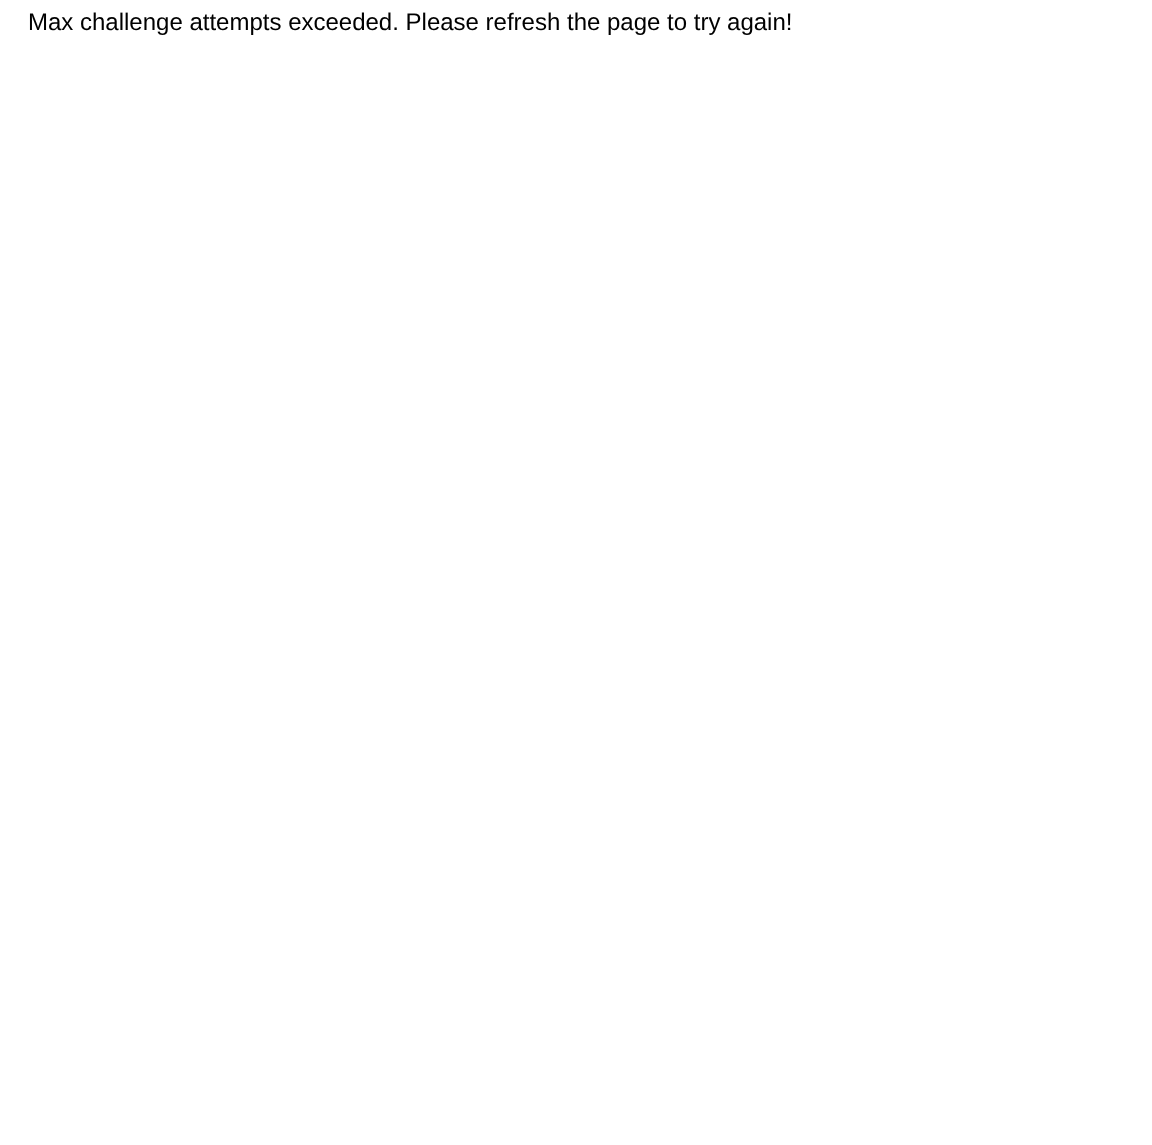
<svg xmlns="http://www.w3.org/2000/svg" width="1152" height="1145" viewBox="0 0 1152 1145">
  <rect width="100%" height="100%" fill="#ffffff"/>
  <text x="28" y="30" font-family="Liberation Sans" font-size="24" fill="#000000">Max challenge attempts exceeded. Please refresh the page to try again!</text>
</svg>
